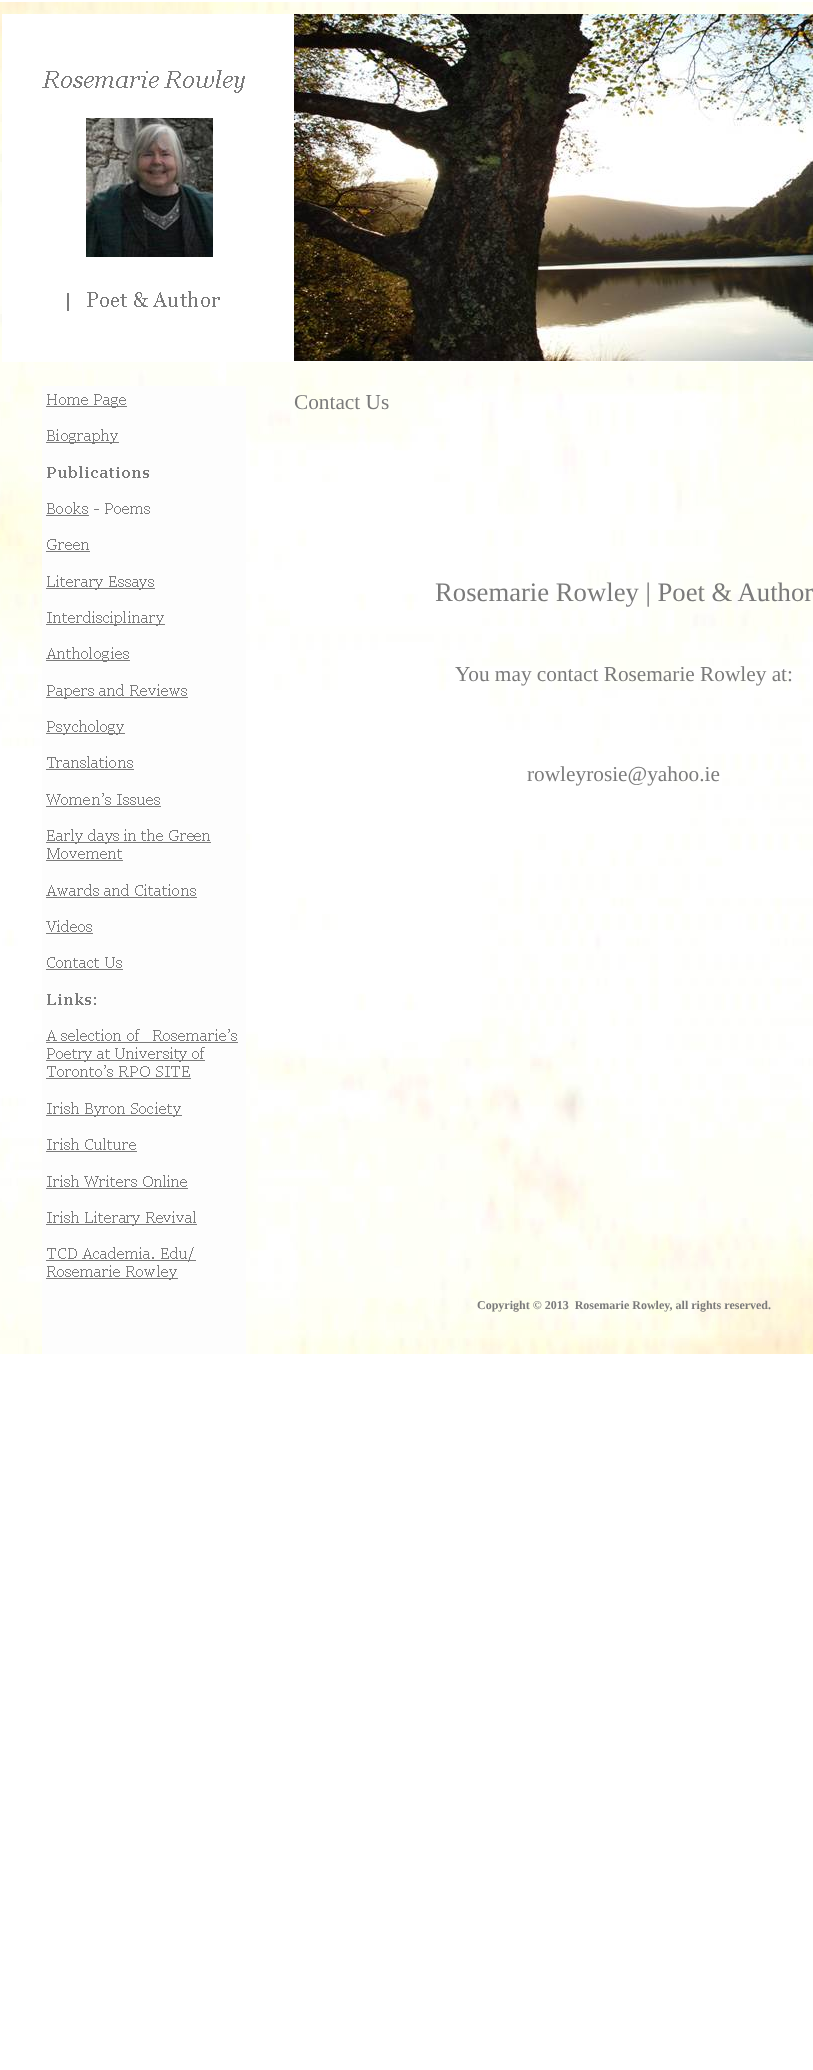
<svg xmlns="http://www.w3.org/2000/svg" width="813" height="2070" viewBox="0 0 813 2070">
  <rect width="100%" height="100%" fill="#ffffff"/>
  <image x="0" y="2" width="813" height="1352" href="img1.png"/>
  <image x="2" y="14" width="811" height="348" href="img2.png"/>
  <image x="86" y="118" width="127" height="139" href="img3.png"/>
  <image x="294" y="14" width="519" height="347" href="img4.png"/>
  <image x="42" y="386" width="204" height="968" href="img5.png"/>
  <text x="294" y="409" font-family="Liberation Serif" font-size="21.3" fill="#7b7b7b">Contact Us</text>
  <text x="435" y="601" font-family="Liberation Serif" font-size="26.7" fill="#7b7b7b">Rosemarie Rowley | Poet &amp; Author</text>
  <text x="455" y="681" font-family="Liberation Serif" font-size="21.3" fill="#7b7b7b">You may contact Rosemarie Rowley at:</text>
  <text x="527" y="781" font-family="Liberation Serif" font-size="21.3" fill="#7b7b7b">rowleyrosie@yahoo.ie</text>
  <text x="477" y="1309" font-family="Liberation Serif" font-size="12" font-weight="bold" fill="#7b7b7b" xml:space="preserve">Copyright © 2013  Rosemarie Rowley, all rights reserved.</text>
</svg>
